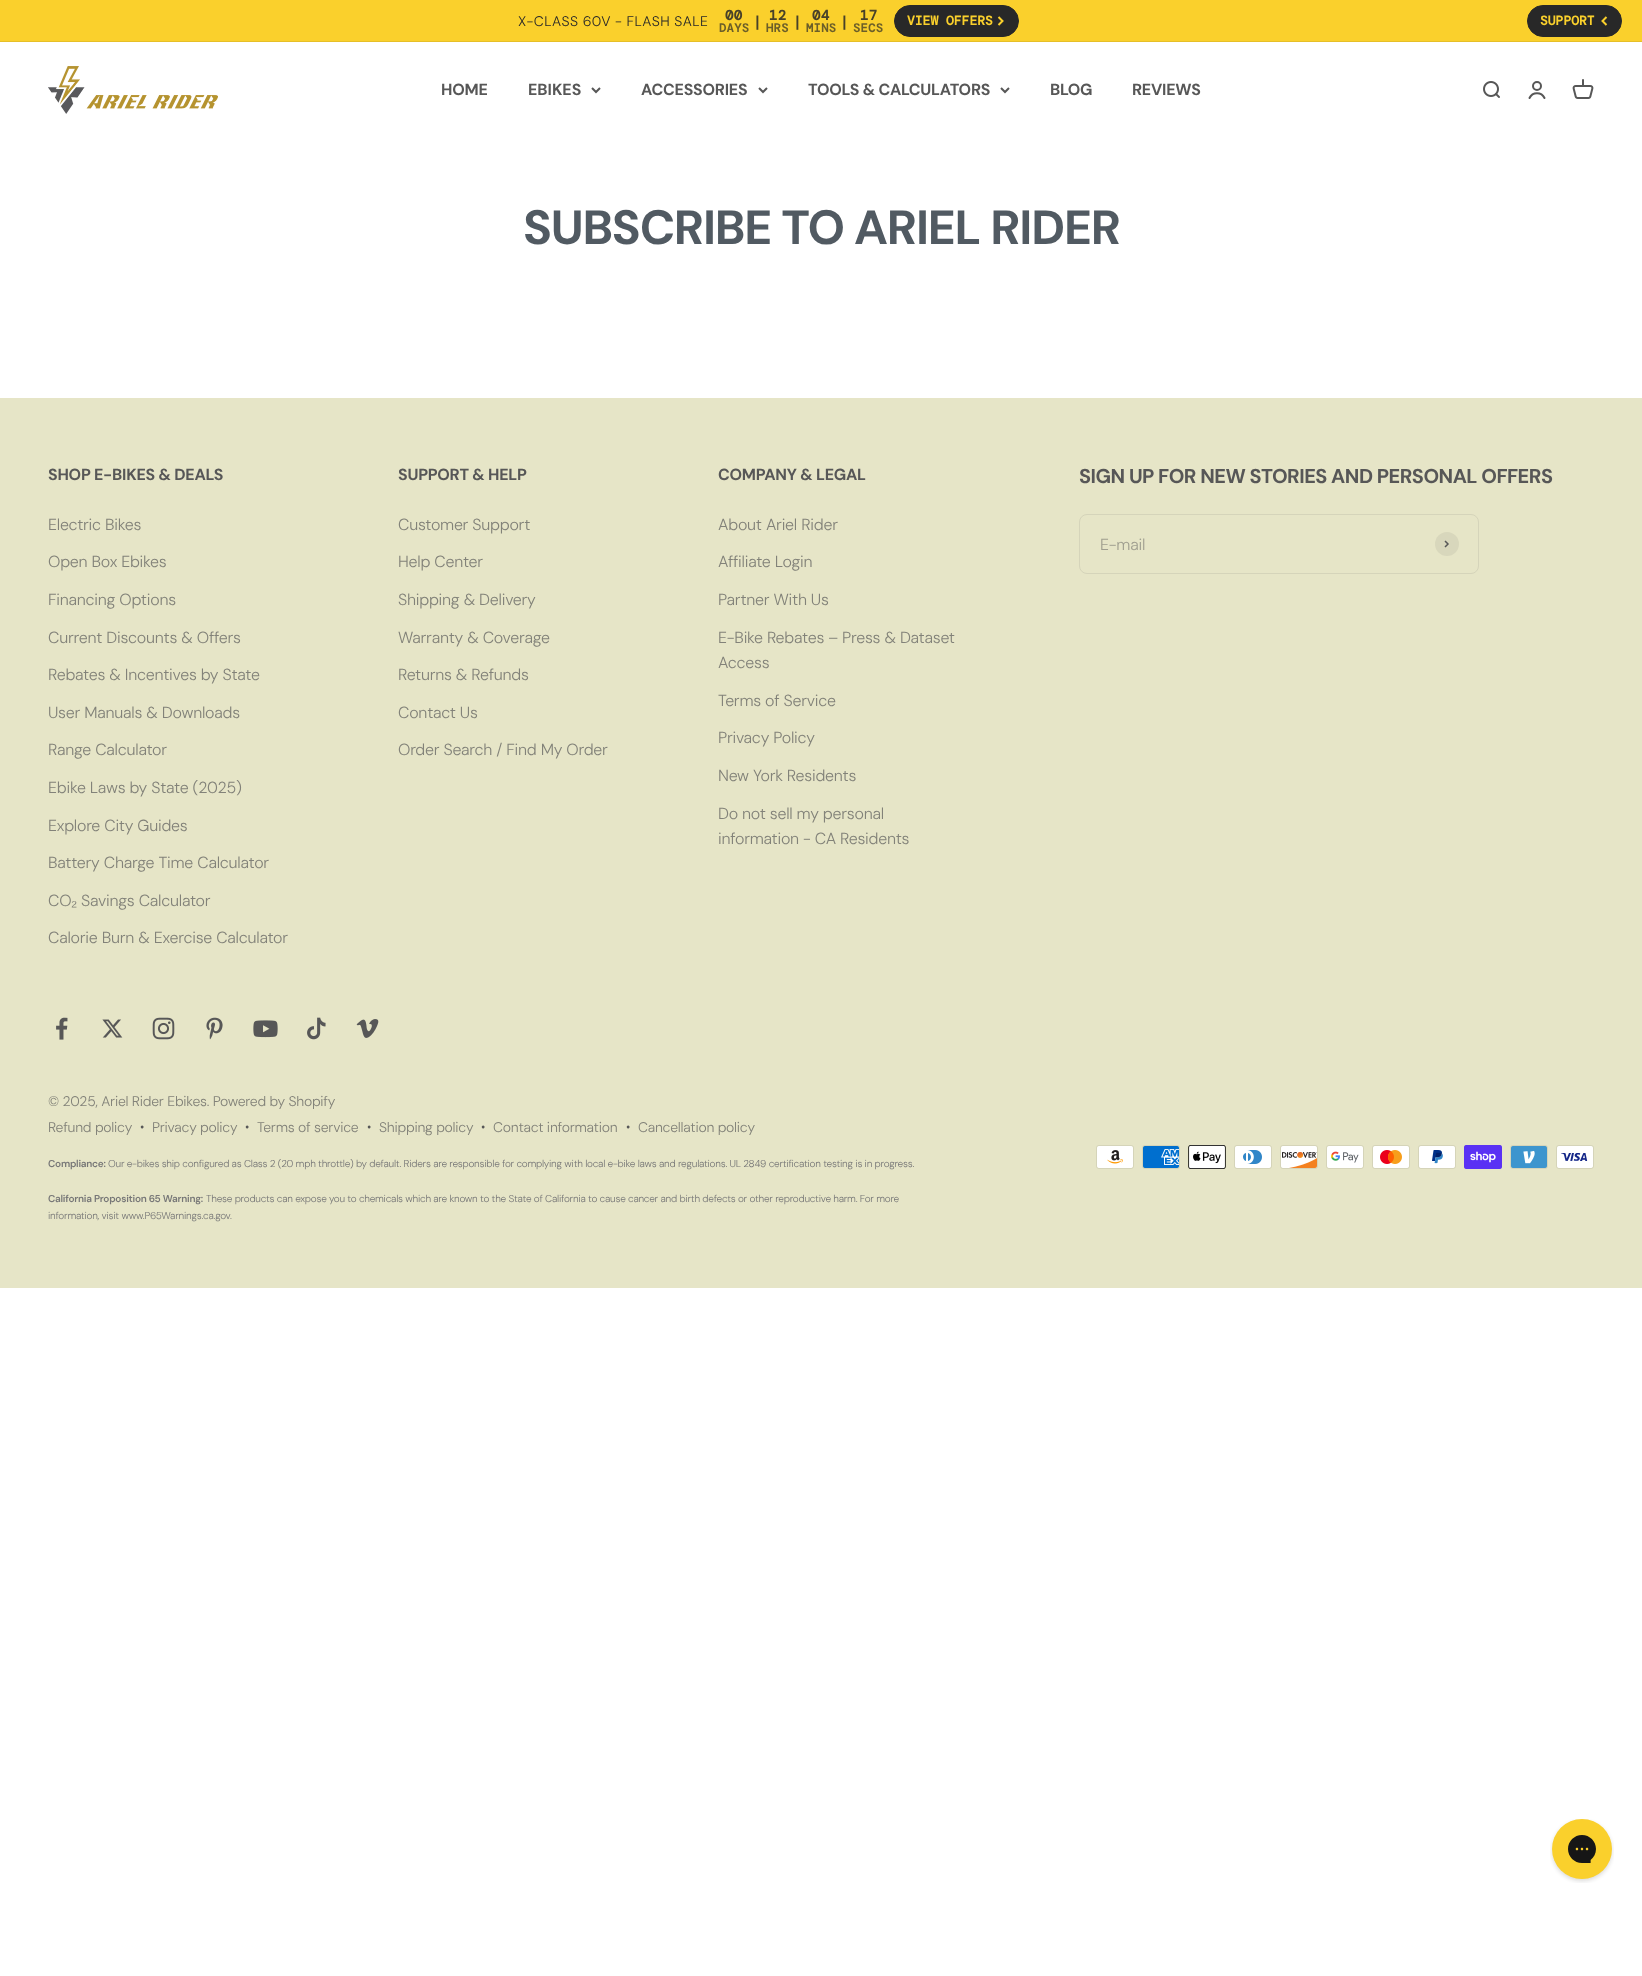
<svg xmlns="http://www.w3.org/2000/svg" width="1642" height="1976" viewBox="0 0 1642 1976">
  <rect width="100%" height="100%" fill="#ffffff"/>
  <rect x="0" y="0" width="1642" height="41" fill="#fad02c"/>
  <rect x="0" y="41" width="1642" height="1" fill="#e6bf28"/>
  <text x="518" y="26" font-family="DM Sans" font-size="14" font-weight="300" letter-spacing="0.4" fill="#282828">X-CLASS 60V - FLASH SALE</text>
  <text x="725" y="20" font-family="DM Mono" font-size="14" font-weight="bold" letter-spacing="0.4" fill="#484129">00</text>
  <text x="719" y="32" font-family="DM Mono" font-size="12" font-weight="bold" letter-spacing="0.4" fill="#6b5e29">DAYS</text>
  <text x="753" y="26" font-family="DM Mono" font-size="14" font-weight="bold" letter-spacing="0.4" fill="#484129">|</text>
  <text x="769" y="20" font-family="DM Mono" font-size="14" font-weight="bold" letter-spacing="0.4" fill="#484129">12</text>
  <text x="766" y="32" font-family="DM Mono" font-size="12" font-weight="bold" letter-spacing="0.4" fill="#6b5e29">HRS</text>
  <text x="793" y="26" font-family="DM Mono" font-size="14" font-weight="bold" letter-spacing="0.4" fill="#484129">|</text>
  <text x="812" y="20" font-family="DM Mono" font-size="14" font-weight="bold" letter-spacing="0.4" fill="#484129">04</text>
  <text x="806" y="32" font-family="DM Mono" font-size="12" font-weight="bold" letter-spacing="0.4" fill="#6b5e29">MINS</text>
  <text x="840" y="26" font-family="DM Mono" font-size="14" font-weight="bold" letter-spacing="0.4" fill="#484129">|</text>
  <text x="860" y="20" font-family="DM Mono" font-size="14" font-weight="bold" letter-spacing="0.4" fill="#484129">17</text>
  <text x="853" y="32" font-family="DM Mono" font-size="12" font-weight="bold" letter-spacing="0.4" fill="#6b5e29">SECS</text>
  <rect x="894.5" y="5.5" width="124" height="31" rx="15.5" fill="#282828" stroke="#282828"/>
  <text x="907" y="25" font-family="DM Mono" font-size="13" font-weight="bold" fill="#fad02c">VIEW OFFERS</text>
  <path d="M998.5 25L1002.5 21L998.5 17" fill="none" stroke="#fad02c" stroke-width="2"/>
  <rect x="1527.5" y="5.5" width="94" height="31" rx="15.5" fill="#282828" stroke="#282828"/>
  <text x="1540" y="25" font-family="DM Mono" font-size="13" font-weight="bold" fill="#fad02c">SUPPORT</text>
  <path d="M1606.5 17L1602.5 21L1606.5 25" fill="none" stroke="#fad02c" stroke-width="2"/>
  <image x="48" y="66" width="170" height="48" href="img1.png"/>
  <text x="441" y="95" font-family="DM Sans" font-size="16" font-weight="bold" letter-spacing="-0.24" fill="#575757">HOME</text>
  <text x="528" y="95" font-family="DM Sans" font-size="16" font-weight="bold" fill="#575757">EBIKES</text>
  <path d="M592 88L596 92L600 88" fill="none" stroke="#575757" stroke-width="2"/>
  <text x="641" y="95" font-family="DM Sans" font-size="16" font-weight="bold" letter-spacing="-0.24" fill="#575757">ACCESSORIES</text>
  <path d="M759 88L763 92L767 88" fill="none" stroke="#575757" stroke-width="2"/>
  <text x="808" y="95" font-family="DM Sans" font-size="16" font-weight="bold" letter-spacing="-0.24" fill="#575757">TOOLS &amp; CALCULATORS</text>
  <path d="M1001 88L1005 92L1009 88" fill="none" stroke="#575757" stroke-width="2"/>
  <text x="1050" y="95" font-family="DM Sans" font-size="16" font-weight="bold" letter-spacing="-0.24" fill="#575757">BLOG</text>
  <text x="1132" y="95" font-family="DM Sans" font-size="16" font-weight="bold" letter-spacing="-0.24" fill="#575757">REVIEWS</text>
  <image x="1483" y="81" width="17" height="17" href="img2.png"/>
  <circle cx="1537" cy="86" r="4" fill="none" stroke="#575757" stroke-width="2"/>
  <path d="M1529.5 98C1532.5 91.5 1541.5 91.5 1544.5 98" fill="none" stroke="#575757" stroke-width="2" stroke-linecap="round"/>
  <image x="1572" y="79" width="22" height="20" href="img3.png"/>
  <text x="523" y="244" font-family="DM Sans" font-size="48" font-weight="bold" letter-spacing="-1.2" fill="#515a62">SUBSCRIBE TO ARIEL RIDER</text>
  <rect x="0" y="398" width="1642" height="890" fill="#e6e5c7"/>
  <text x="48" y="480" font-family="DM Sans" font-size="16" font-weight="bold" letter-spacing="-0.24" fill="#575757">SHOP E-BIKES &amp; DEALS</text>
  <text x="48" y="530" font-family="DM Sans" font-size="16" font-weight="300" letter-spacing="-0.24" fill="#828279">Electric Bikes</text>
  <text x="48" y="567" font-family="DM Sans" font-size="16" font-weight="300" letter-spacing="-0.24" fill="#828279">Open Box Ebikes</text>
  <text x="48" y="605" font-family="DM Sans" font-size="16" font-weight="300" letter-spacing="-0.24" fill="#828279">Financing Options</text>
  <text x="48" y="643" font-family="DM Sans" font-size="16" font-weight="300" letter-spacing="-0.24" fill="#828279">Current Discounts &amp; Offers</text>
  <text x="48" y="680" font-family="DM Sans" font-size="16" font-weight="300" letter-spacing="-0.24" fill="#828279">Rebates &amp; Incentives by State</text>
  <text x="48" y="718" font-family="DM Sans" font-size="16" font-weight="300" letter-spacing="-0.24" fill="#828279">User Manuals &amp; Downloads</text>
  <text x="48" y="755" font-family="DM Sans" font-size="16" font-weight="300" letter-spacing="-0.24" fill="#828279">Range Calculator</text>
  <text x="48" y="793" font-family="DM Sans" font-size="16" font-weight="300" letter-spacing="-0.24" fill="#828279">Ebike Laws by State (2025)</text>
  <text x="48" y="831" font-family="DM Sans" font-size="16" font-weight="300" letter-spacing="-0.24" fill="#828279">Explore City Guides</text>
  <text x="48" y="868" font-family="DM Sans" font-size="16" font-weight="300" letter-spacing="-0.24" fill="#828279">Battery Charge Time Calculator</text>
  <text x="48" y="906" font-family="DM Sans" font-size="16" font-weight="300" letter-spacing="-0.24" fill="#828279">CO</text>
  <text x="71" y="906" font-family="Liberation Sans" font-size="16" letter-spacing="-0.24" fill="#828279">₂</text>
  <text x="81" y="906" font-family="DM Sans" font-size="16" font-weight="300" letter-spacing="-0.24" fill="#828279">Savings Calculator</text>
  <text x="48" y="943" font-family="DM Sans" font-size="16" font-weight="300" letter-spacing="-0.24" fill="#828279">Calorie Burn &amp; Exercise Calculator</text>
  <text x="398" y="480" font-family="DM Sans" font-size="16" font-weight="bold" letter-spacing="-0.24" fill="#575757">SUPPORT &amp; HELP</text>
  <text x="398" y="530" font-family="DM Sans" font-size="16" font-weight="300" letter-spacing="-0.24" fill="#828279">Customer Support</text>
  <text x="398" y="567" font-family="DM Sans" font-size="16" font-weight="300" letter-spacing="-0.24" fill="#828279">Help Center</text>
  <text x="398" y="605" font-family="DM Sans" font-size="16" font-weight="300" letter-spacing="-0.24" fill="#828279">Shipping &amp; Delivery</text>
  <text x="398" y="643" font-family="DM Sans" font-size="16" font-weight="300" letter-spacing="-0.24" fill="#828279">Warranty &amp; Coverage</text>
  <text x="398" y="680" font-family="DM Sans" font-size="16" font-weight="300" letter-spacing="-0.24" fill="#828279">Returns &amp; Refunds</text>
  <text x="398" y="718" font-family="DM Sans" font-size="16" font-weight="300" letter-spacing="-0.24" fill="#828279">Contact Us</text>
  <text x="398" y="755" font-family="DM Sans" font-size="16" font-weight="300" letter-spacing="-0.24" fill="#828279">Order Search / Find My Order</text>
  <text x="718" y="480" font-family="DM Sans" font-size="16" font-weight="bold" letter-spacing="-0.24" fill="#575757">COMPANY &amp; LEGAL</text>
  <text x="718" y="530" font-family="DM Sans" font-size="16" font-weight="300" letter-spacing="-0.24" fill="#828279">About Ariel Rider</text>
  <text x="718" y="567" font-family="DM Sans" font-size="16" font-weight="300" letter-spacing="-0.24" fill="#828279">Affiliate Login</text>
  <text x="718" y="605" font-family="DM Sans" font-size="16" font-weight="300" letter-spacing="-0.24" fill="#828279">Partner With Us</text>
  <text x="718" y="643" font-family="DM Sans" font-size="16" font-weight="300" letter-spacing="-0.24" fill="#828279">E-Bike Rebates – Press &amp; Dataset</text>
  <text x="718" y="668" font-family="DM Sans" font-size="16" font-weight="300" letter-spacing="-0.24" fill="#828279">Access</text>
  <text x="718" y="706" font-family="DM Sans" font-size="16" font-weight="300" letter-spacing="-0.24" fill="#828279">Terms of Service</text>
  <text x="718" y="743" font-family="DM Sans" font-size="16" font-weight="300" letter-spacing="-0.24" fill="#828279">Privacy Policy</text>
  <text x="718" y="781" font-family="DM Sans" font-size="16" font-weight="300" letter-spacing="-0.24" fill="#828279">New York Residents</text>
  <text x="718" y="819" font-family="DM Sans" font-size="16" font-weight="300" letter-spacing="-0.24" fill="#828279">Do not sell my personal</text>
  <text x="718" y="844" font-family="DM Sans" font-size="16" font-weight="300" letter-spacing="-0.24" fill="#828279">information - CA Residents</text>
  <text x="1079" y="483" font-family="DM Sans" font-size="20" font-weight="bold" letter-spacing="-0.5" fill="#575757">SIGN UP FOR NEW STORIES AND PERSONAL OFFERS</text>
  <rect x="1079.5" y="514.5" width="399" height="59" rx="7.5" fill="none" stroke="#d5d4ba"/>
  <text x="1100" y="550" font-family="DM Sans" font-size="16" font-weight="300" letter-spacing="-0.24" fill="#9f9e8f">E-mail</text>
  <circle cx="1447" cy="544" r="12" fill="#d8d7bc"/>
  <path d="M1445 547L1448 544L1445 541" fill="none" stroke="#575757" stroke-width="1.5"/>
  <image x="56" y="1017" width="12" height="23" href="img4.png"/>
  <image x="102" y="1019" width="21" height="19" href="img5.png"/>
  <image x="152" y="1017" width="23" height="23" href="img6.png"/>
  <image x="206" y="1017" width="17" height="23" href="img7.png"/>
  <image x="253" y="1020" width="25" height="18" href="img8.png"/>
  <image x="307" y="1017" width="19" height="23" href="img9.png"/>
  <image x="356" y="1019" width="23" height="19" href="img10.png"/>
  <text x="48" y="1106" font-family="DM Sans" font-size="14" font-weight="300" letter-spacing="-0.24" fill="#828279">© 2025, Ariel Rider Ebikes. Powered by Shopify</text>
  <text x="48" y="1132" font-family="DM Sans" font-size="14" font-weight="300" letter-spacing="-0.24" fill="#828279">Refund policy</text>
  <text x="140" y="1131" font-family="DM Sans" font-size="12" font-weight="300" letter-spacing="-0.24" fill="#575757">•</text>
  <text x="152" y="1132" font-family="DM Sans" font-size="14" font-weight="300" letter-spacing="-0.24" fill="#828279">Privacy policy</text>
  <text x="245" y="1131" font-family="DM Sans" font-size="12" font-weight="300" letter-spacing="-0.24" fill="#575757">•</text>
  <text x="257" y="1132" font-family="DM Sans" font-size="14" font-weight="300" letter-spacing="-0.24" fill="#828279">Terms of service</text>
  <text x="367" y="1131" font-family="DM Sans" font-size="12" font-weight="300" letter-spacing="-0.24" fill="#575757">•</text>
  <text x="379" y="1132" font-family="DM Sans" font-size="14" font-weight="300" letter-spacing="-0.24" fill="#828279">Shipping policy</text>
  <text x="481" y="1131" font-family="DM Sans" font-size="12" font-weight="300" letter-spacing="-0.24" fill="#575757">•</text>
  <text x="493" y="1132" font-family="DM Sans" font-size="14" font-weight="300" letter-spacing="-0.24" fill="#828279">Contact information</text>
  <text x="626" y="1131" font-family="DM Sans" font-size="12" font-weight="300" letter-spacing="-0.24" fill="#575757">•</text>
  <text x="638" y="1132" font-family="DM Sans" font-size="14" font-weight="300" letter-spacing="-0.24" fill="#828279">Cancellation policy</text>
  <text x="48" y="1167" font-family="DM Sans" font-size="10" font-weight="600" letter-spacing="-0.24" fill="#777777">Compliance:</text>
  <text x="108" y="1167" font-family="DM Sans" font-size="10" font-weight="300" letter-spacing="-0.24" fill="#777777">Our e-bikes ship configured as Class 2 (20 mph throttle) by default. Riders are responsible for complying with local e-bike laws and regulations. UL 2849 certification testing is in progress.</text>
  <text x="48" y="1202" font-family="DM Sans" font-size="10" font-weight="600" letter-spacing="-0.24" fill="#777777">California Proposition 65 Warning:</text>
  <text x="206" y="1202" font-family="DM Sans" font-size="10" font-weight="300" letter-spacing="-0.24" fill="#777777">These products can expose you to chemicals which are known to the State of California to cause cancer and birth defects or other reproductive harm. For more</text>
  <text x="48" y="1219" font-family="DM Sans" font-size="10" font-weight="300" letter-spacing="-0.24" fill="#777777">information, visit www.P65Warnings.ca.gov</text>
  <text x="230" y="1219" font-family="DM Sans" font-size="10" font-weight="300" letter-spacing="-0.24" fill="#777777">.</text>
  <image x="1096" y="1145" width="38" height="24" href="img11.png"/>
  <image x="1142" y="1145" width="38" height="24" href="img12.png"/>
  <image x="1188" y="1145" width="38" height="24" href="img13.png"/>
  <image x="1234" y="1145" width="38" height="24" href="img14.png"/>
  <image x="1280" y="1145" width="38" height="24" href="img15.png"/>
  <image x="1326" y="1145" width="38" height="24" href="img16.png"/>
  <image x="1372" y="1145" width="38" height="24" href="img17.png"/>
  <image x="1418" y="1145" width="38" height="24" href="img18.png"/>
  <image x="1464" y="1145" width="38" height="24" href="img19.png"/>
  <image x="1510" y="1145" width="38" height="24" href="img20.png"/>
  <image x="1556" y="1145" width="38" height="24" href="img21.png"/>
  <image x="1550" y="1819" width="64" height="64" href="img22.png"/>
</svg>
